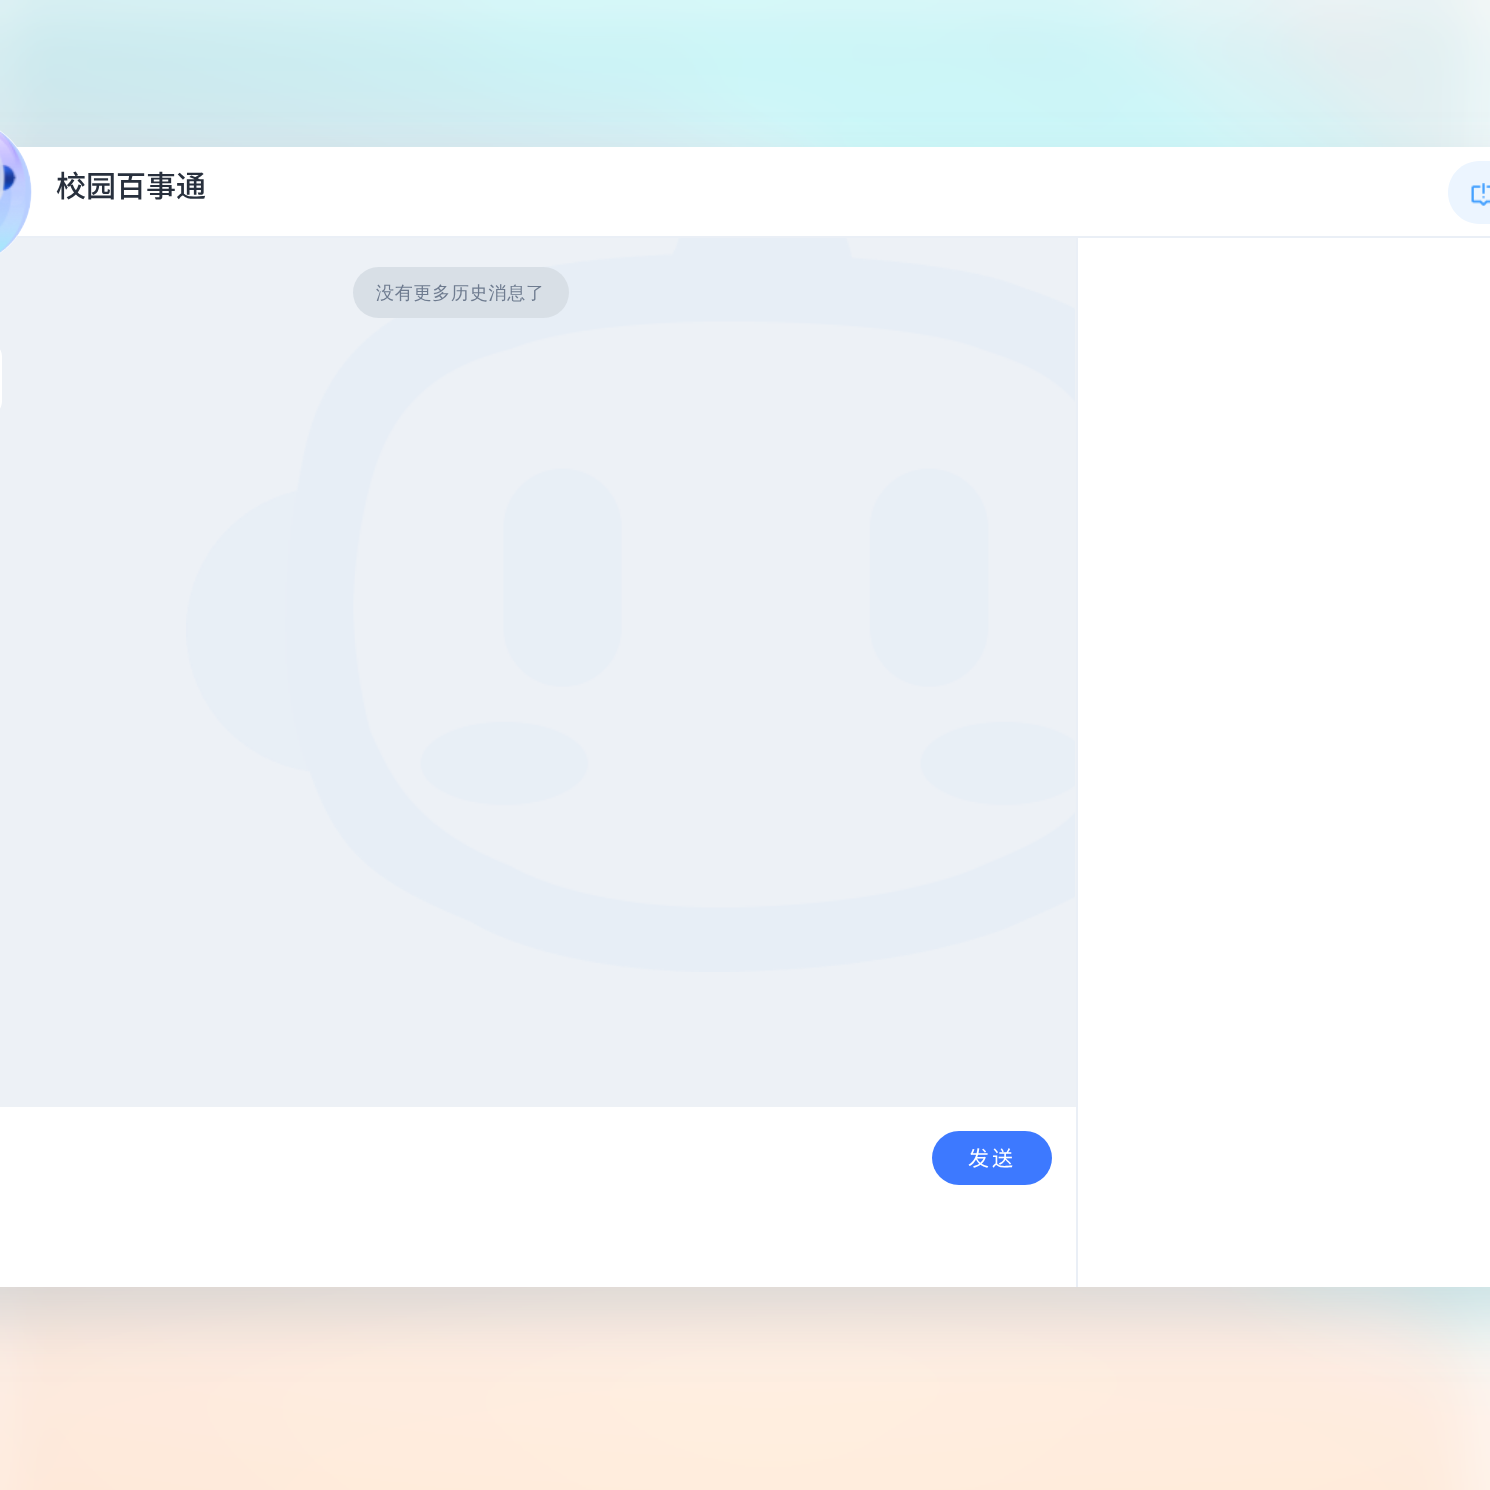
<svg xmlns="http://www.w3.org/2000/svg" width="1490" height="1490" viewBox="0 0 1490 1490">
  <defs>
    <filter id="blur1" x="-50%" y="-200%" width="200%" height="500%"><feGaussianBlur stdDeviation="30"/></filter>
  </defs>
  <rect width="100%" height="100%" fill="#ffffff"/>
  <image x="0" y="0" width="1490" height="1490" href="img1.png"/>
  <rect x="-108" y="177" width="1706" height="1140" rx="18" fill="#93acb5" fill-opacity="0.3" filter="url(#blur1)"/>
  <rect x="17" y="147" width="1473" height="1140" fill="#ffffff"/>
  <rect x="1076" y="237" width="2" height="1050" fill="#eaeff6"/>
  <rect x="16" y="236" width="1474" height="2" fill="#eaeff6"/>
  <rect x="0" y="238" width="1076" height="869" fill="#edf1f6"/>
  <path d="M0 117H-43C-1.5 117 32 150.5 32 192C32 233.5-1.5 267-43 267H0Z" fill="#ffffff"/>
  <image x="0" y="131" width="32" height="122" href="img2.png"/>
  <text x="56" y="197" font-family="Noto Sans CJK SC" font-size="30" font-weight="500" fill="#28303d">校园百事通</text>
  <path d="M1479.5 161H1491V224H1479.5C1462 224 1448 210 1448 192.5C1448 175 1462 161 1479.5 161Z" fill="#ecf5ff"/>
  <image x="1471" y="183" width="19" height="23" href="img3.png"/>
  <image x="186" y="238" width="889" height="734" href="img4.png"/>
  <rect x="353" y="267" width="216" height="51" rx="25.5" fill="#d8dfe6"/>
  <text x="376" y="299" font-family="WenQuanYi Zen Hei" font-size="18" font-weight="500" letter-spacing="0.75" fill="#6e7b8f">没有更多历史消息了</text>
  <path d="M0 342H-13C-4.5 342 2 348.5 2 357V401C2 409.5-4.5 416-13 416H0Z" fill="#ffffff"/>
  <rect x="0" y="1107" width="17" height="180" fill="#ffffff"/>
  <rect x="932" y="1131" width="120" height="54" rx="27" fill="#3d79ff"/>
  <text x="968" y="1166" font-family="Noto Sans CJK SC" font-size="21" letter-spacing="3" fill="#ffffff">发送</text>
</svg>
